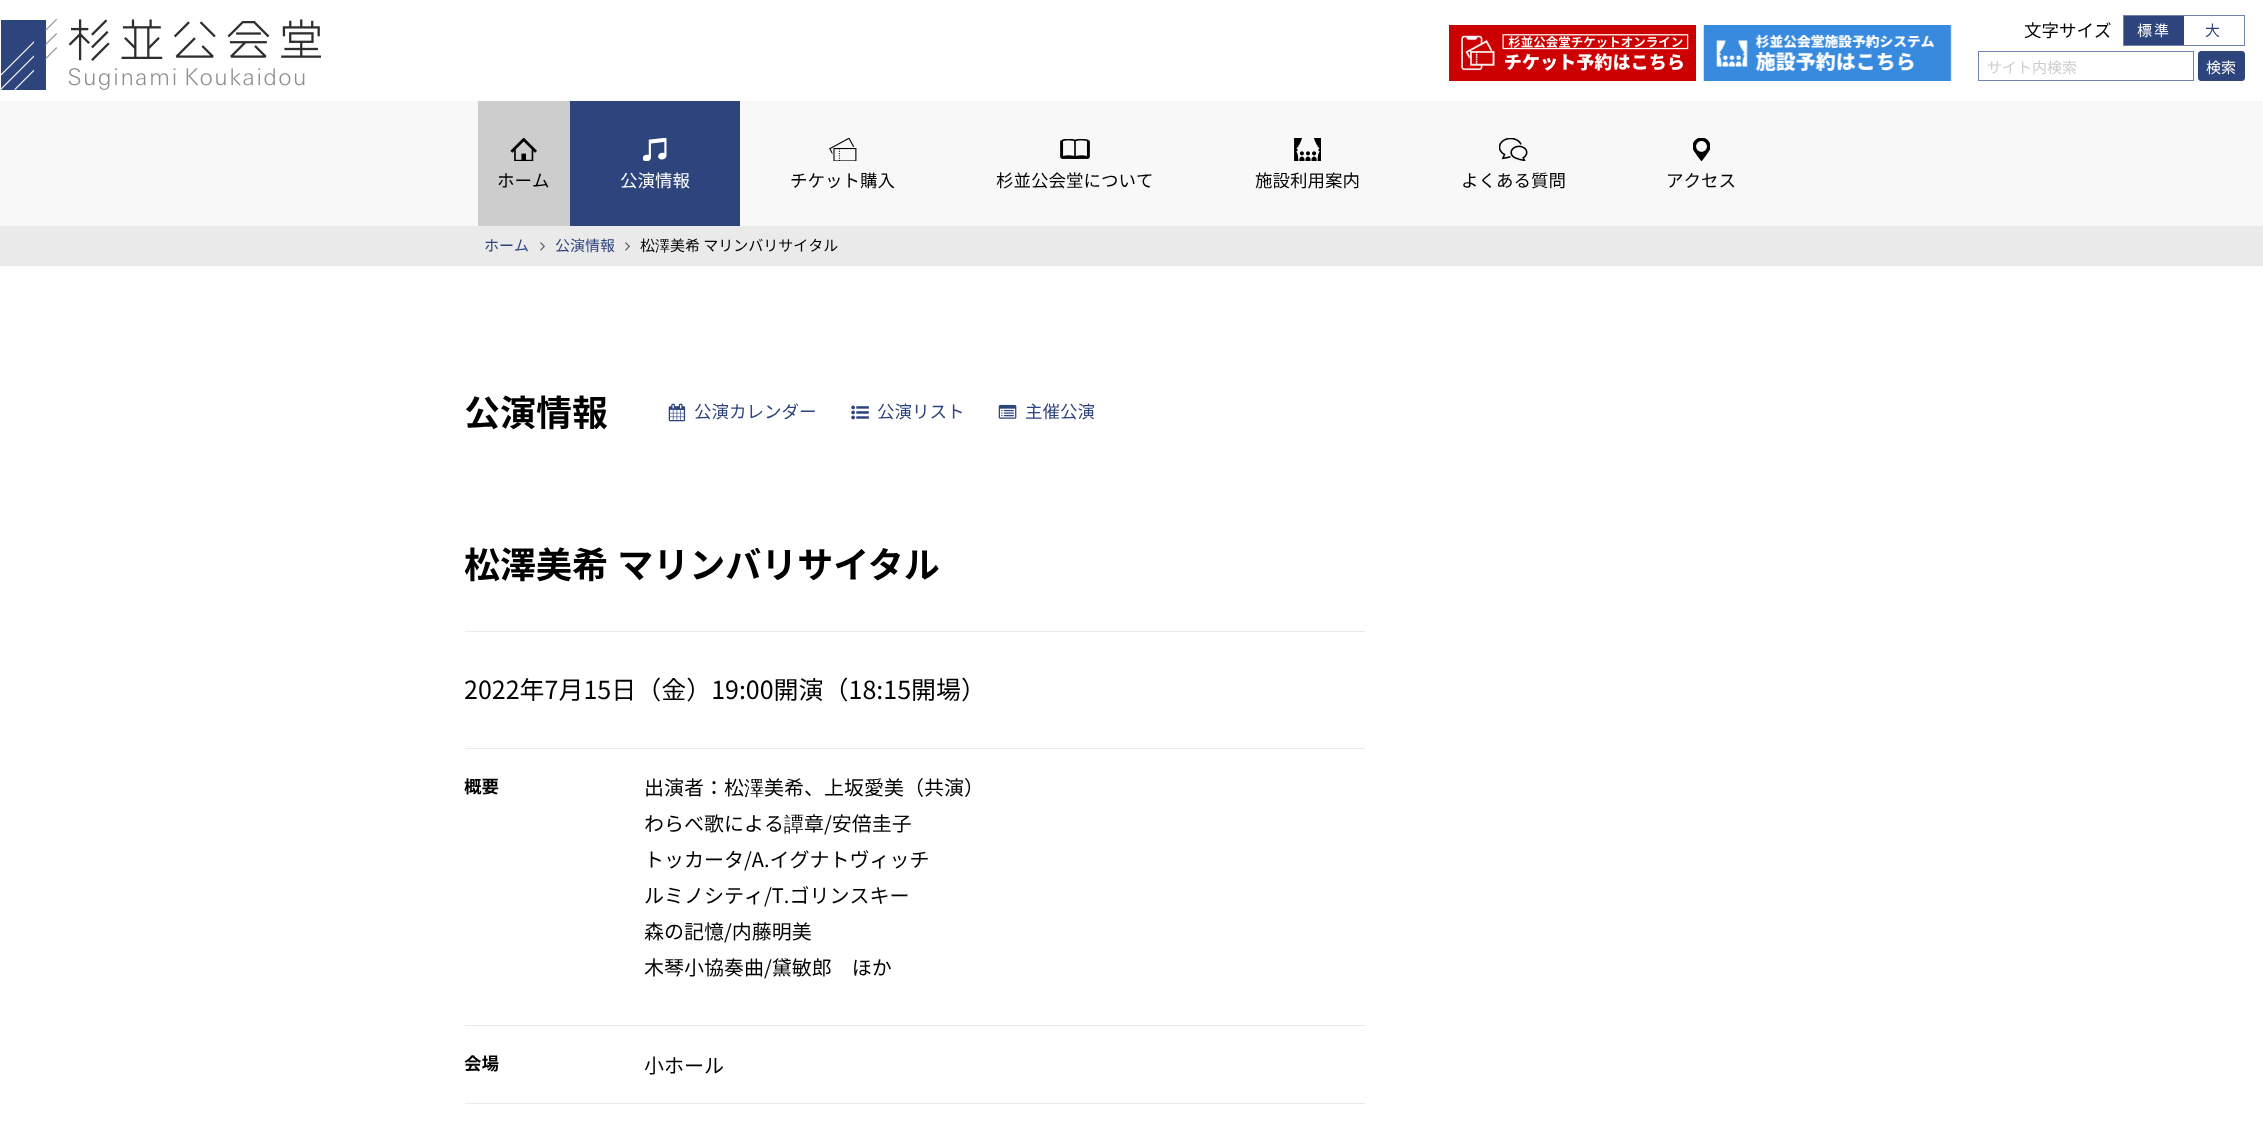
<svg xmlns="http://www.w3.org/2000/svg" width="2263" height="1124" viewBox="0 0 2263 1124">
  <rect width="100%" height="100%" fill="#ffffff"/>
  <image x="1" y="19" width="320" height="71" href="img1.png"/>
  <text x="2024" y="37" font-family="Noto Sans CJK JP" font-size="17.5" fill="#000000">文字サイズ</text>
  <rect x="2123.5" y="15.5" width="121" height="30" fill="none" stroke="#7082af"/>
  <rect x="2124" y="16" width="60" height="29" fill="#2e447d"/>
  <text x="2137" y="36" font-family="Noto Sans CJK JP" font-size="15" letter-spacing="2" fill="#ffffff">標準</text>
  <text x="2205" y="36" font-family="Noto Sans CJK JP" font-size="15" letter-spacing="2" fill="#2e447d">大</text>
  <rect x="1978.5" y="51.5" width="215" height="29" fill="none" stroke="#7082af"/>
  <text x="1987" y="73" font-family="Noto Sans CJK JP" font-size="15" fill="#cecdcd">サイト内検索</text>
  <rect x="2198.5" y="51.5" width="46" height="29" rx="2.5" fill="#2e447d" stroke="#2e447d"/>
  <text x="2206" y="73" font-family="Noto Sans CJK JP" font-size="15" fill="#ffffff">検索</text>
  <rect x="0" y="101" width="2263" height="125" fill="#f8f8f8"/>
  <rect x="478" y="101" width="92" height="125" fill="#cecdcd"/>
  <image x="510" y="138" width="27" height="23" href="img2.png"/>
  <text x="497" y="187" font-family="Noto Sans CJK JP" font-size="17.5" fill="#000000">ホーム</text>
  <rect x="570" y="101" width="170" height="125" fill="#2e447d"/>
  <image x="643" y="138" width="24" height="23" href="img3.png"/>
  <text x="620" y="187" font-family="Noto Sans CJK JP" font-size="17.5" fill="#ffffff">公演情報</text>
  <image x="829" y="138" width="28" height="23" href="img4.png"/>
  <text x="790" y="187" font-family="Noto Sans CJK JP" font-size="17.5" fill="#000000">チケット購入</text>
  <image x="1060" y="139" width="30" height="20" href="img5.png"/>
  <text x="996" y="187" font-family="Noto Sans CJK JP" font-size="17.5" fill="#000000">杉並公会堂について</text>
  <image x="1294" y="138" width="27" height="23" href="img6.png"/>
  <text x="1255" y="187" font-family="Noto Sans CJK JP" font-size="17.5" fill="#000000">施設利用案内</text>
  <image x="1499" y="138" width="29" height="23" href="img7.png"/>
  <text x="1461" y="187" font-family="Noto Sans CJK JP" font-size="17.5" fill="#000000">よくある質問</text>
  <image x="1693" y="138" width="17" height="23" href="img8.png"/>
  <text x="1666" y="187" font-family="Noto Sans CJK JP" font-size="17.5" fill="#000000">アクセス</text>
  <image x="1449" y="25" width="247" height="56" href="img9.png"/>
  <image x="1703" y="25" width="249" height="56" href="img10.png"/>
  <rect x="0" y="226" width="2263" height="40" fill="#eaeaea"/>
  <text x="484" y="251" font-family="Noto Sans CJK JP" font-size="15" fill="#2e447d">ホーム</text>
  <image x="540" y="242" width="5" height="9" href="img11.png"/>
  <text x="555" y="251" font-family="Noto Sans CJK JP" font-size="15" fill="#2e447d">公演情報</text>
  <image x="625" y="242" width="5" height="9" href="img11.png"/>
  <text x="640" y="251" font-family="Noto Sans CJK JP" font-size="15" fill="#000000">松</text>
  <text x="655" y="251" font-family="WenQuanYi Zen Hei" font-size="15" font-weight="500" fill="#000000">澤</text>
  <text x="670" y="251" font-family="Noto Sans CJK JP" font-size="15" fill="#000000">美希 マリンバリサイタル</text>
  <text x="464" y="426" font-family="Noto Sans CJK JP" font-size="36" font-weight="bold" fill="#000000">公演情報</text>
  <image x="668" y="403" width="18" height="19" href="img12.png"/>
  <text x="694" y="418" font-family="Noto Sans CJK JP" font-size="17.5" fill="#2e447d">公演カレンダー</text>
  <image x="851" y="405" width="18" height="15" href="img13.png"/>
  <text x="877" y="418" font-family="Noto Sans CJK JP" font-size="17.5" fill="#2e447d">公演リスト</text>
  <image x="998" y="404" width="19" height="15" href="img14.png"/>
  <text x="1025" y="418" font-family="Noto Sans CJK JP" font-size="17.5" fill="#2e447d">主催公演</text>
  <text x="464" y="578" word-spacing="1" font-family="Noto Sans JP" font-size="36" font-weight="bold" fill="#000000">松澤美希 マリンバリサイタル</text>
  <rect x="465" y="631" width="900" height="1" fill="#eaeaea"/>
  <text x="464" y="699" font-family="Noto Sans CJK JP" font-size="25" fill="#000000">2022年7月15日（金）19:00開演（18:15開場）</text>
  <rect x="465" y="748" width="900" height="1" fill="#eaeaea"/>
  <text x="464" y="793" font-family="Noto Sans CJK JP" font-size="17.5" font-weight="bold" fill="#000000">概要</text>
  <text x="644" y="795" font-family="Noto Sans CJK JP" font-size="20" fill="#000000">出演者：松</text>
  <text x="744" y="795" font-family="WenQuanYi Zen Hei" font-size="20" font-weight="500" fill="#000000">澤</text>
  <text x="764" y="795" font-family="Noto Sans CJK JP" font-size="20" fill="#000000">美希、上坂愛美（共演）</text>
  <text x="644" y="831" font-family="Noto Sans CJK JP" font-size="20" fill="#000000">わらべ歌による</text>
  <text x="784" y="831" font-family="WenQuanYi Zen Hei" font-size="20" font-weight="500" fill="#000000">譚</text>
  <text x="804" y="831" font-family="Noto Sans CJK JP" font-size="20" fill="#000000">章/安倍圭子</text>
  <text x="644" y="867" font-family="Noto Sans CJK JP" font-size="20" fill="#000000">トッカータ/A.イグナトヴィッチ</text>
  <text x="644" y="903" font-family="Noto Sans CJK JP" font-size="20" fill="#000000">ルミノシティ/T.ゴリンスキー</text>
  <text x="644" y="939" font-family="Noto Sans CJK JP" font-size="20" fill="#000000">森の記憶/内藤明美</text>
  <text x="644" y="975" font-family="Noto Sans CJK JP" font-size="20" fill="#000000">木琴小協奏曲/黛敏郎　ほか</text>
  <rect x="465" y="1025" width="900" height="1" fill="#eaeaea"/>
  <text x="464" y="1070" font-family="Noto Sans CJK JP" font-size="17.5" font-weight="bold" fill="#000000">会場</text>
  <text x="644" y="1073" font-family="Noto Sans CJK JP" font-size="20" fill="#000000">小ホール</text>
  <rect x="465" y="1103" width="900" height="1" fill="#eaeaea"/>
</svg>
